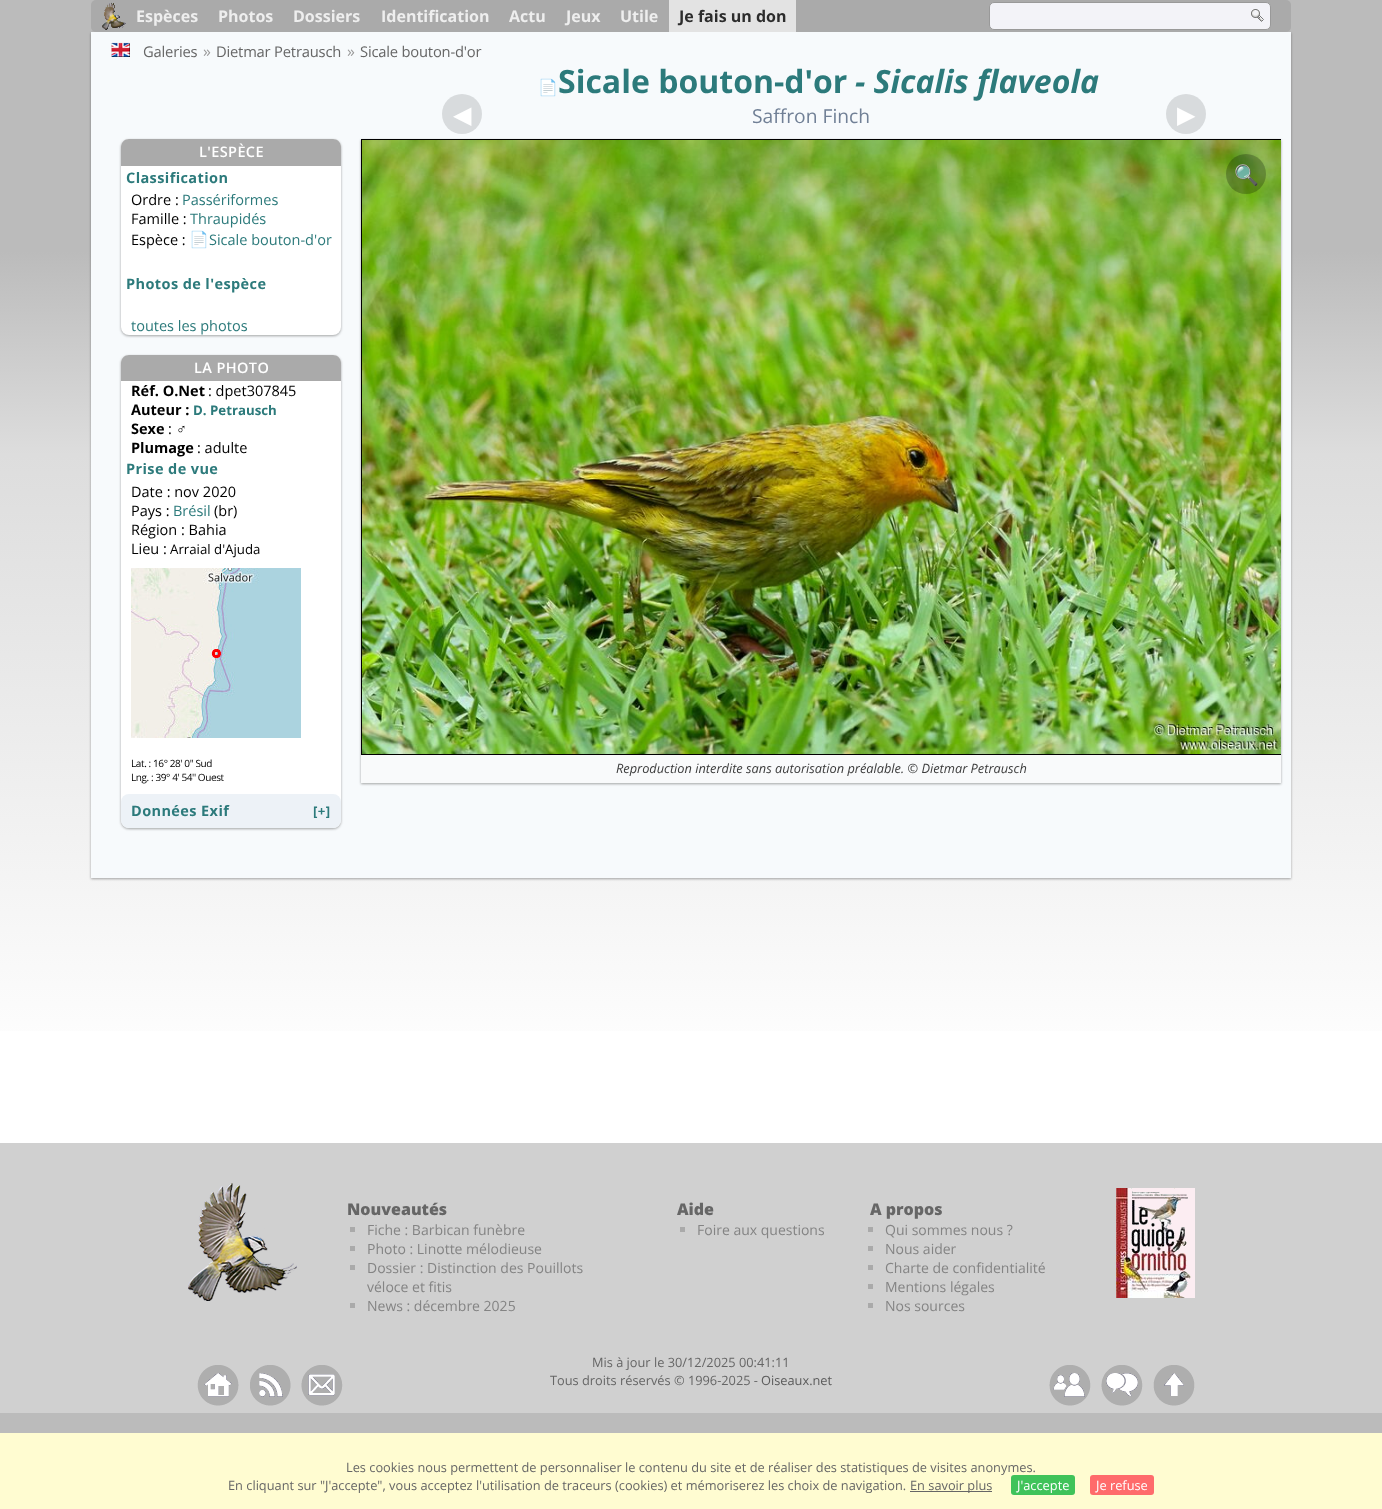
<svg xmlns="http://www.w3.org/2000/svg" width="1382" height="1509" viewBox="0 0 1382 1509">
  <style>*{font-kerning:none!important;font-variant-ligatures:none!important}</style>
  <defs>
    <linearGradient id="g1" gradientUnits="userSpaceOnUse" x1="691" y1="0" x2="691" y2="1196"><stop offset="0" stop-color="#bbbbbb"/><stop offset="0.21" stop-color="#bbbbbb"/><stop offset="0.38" stop-color="#dddddd"/><stop offset="0.9" stop-color="#ffffff"/><stop offset="1" stop-color="#ffffff"/></linearGradient>
    <linearGradient id="g2" gradientUnits="userSpaceOnUse" x1="691" y1="1196" x2="691" y2="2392"><stop offset="0" stop-color="#bbbbbb"/><stop offset="0.21" stop-color="#bbbbbb"/><stop offset="0.38" stop-color="#dddddd"/><stop offset="0.9" stop-color="#ffffff"/><stop offset="1" stop-color="#ffffff"/></linearGradient>
    <filter id="blur1" x="-50%" y="-200%" width="200%" height="500%"><feGaussianBlur stdDeviation="1"/></filter>
    <filter id="blur2" x="-50%" y="-200%" width="200%" height="500%"><feGaussianBlur stdDeviation="1.5"/></filter>
    <clipPath id="clip1"><rect x="361" y="139" width="920" height="644"/></clipPath>
  </defs>
  <rect width="100%" height="100%" fill="#ffffff"/>
  <rect x="0" y="0" width="1382" height="1031" fill="url(#g1)"/>
  <rect x="0" y="1413" width="1382" height="20" fill="url(#g2)"/>
  <rect x="91" y="33" width="1200" height="846" fill="#000000" fill-opacity="0.24" filter="url(#blur1)"/>
  <rect x="91" y="33" width="1200" height="846" fill="#000000" fill-opacity="0.12" filter="url(#blur2)"/>
  <rect x="91" y="0" width="1200" height="32" rx="5" fill="#aaaaaa"/>
  <image x="102" y="2" width="24" height="28" href="img1.png"/>
  <text x="136" y="22" font-family="Open Sans" font-size="16" font-weight="bold" fill="#eeeeee">Espèces</text>
  <text x="218" y="22" font-family="Open Sans" font-size="16" font-weight="bold" fill="#eeeeee">Photos</text>
  <text x="293" y="22" font-family="Open Sans" font-size="16" font-weight="bold" fill="#eeeeee">Dossiers</text>
  <text x="381" y="22" font-family="Open Sans" font-size="16" font-weight="bold" fill="#eeeeee">Identification</text>
  <text x="509" y="22" font-family="Open Sans" font-size="16" font-weight="bold" fill="#eeeeee">Actu</text>
  <text x="566" y="22" font-family="Open Sans" font-size="16" font-weight="bold" fill="#eeeeee">Jeux</text>
  <text x="620" y="22" font-family="Open Sans" font-size="16" font-weight="bold" fill="#eeeeee">Utile</text>
  <rect x="669" y="0" width="127" height="32" fill="#e3e3e3"/>
  <text x="679" y="22" font-family="Open Sans" font-size="16" font-weight="bold" fill="#2c2c2c">Je fais un don</text>
  <rect x="989.5" y="2.5" width="281" height="27" rx="4.5" fill="#f3f3f8" stroke="#999999"/>
  <image x="1251" y="9" width="13" height="13" href="img2.png"/>
  <rect x="91" y="32" width="1200" height="846" fill="#f7fafc"/>
  <image x="111" y="42" width="19" height="15" href="img3.png"/>
  <text x="143" y="57" font-family="Open Sans" font-size="14.75" letter-spacing="-0.2" fill="#666666">Galeries</text>
  <text x="203" y="57" font-family="Open Sans" font-size="16" fill="#999999">»</text>
  <text x="216" y="57" font-family="Open Sans" font-size="14.75" letter-spacing="-0.2" fill="#666666">Dietmar Petrausch</text>
  <text x="347" y="57" font-family="Open Sans" font-size="16" fill="#999999">»</text>
  <text x="360" y="57" font-family="Open Sans" font-size="14.75" letter-spacing="-0.2" fill="#666666">Sicale bouton-d'or</text>
  <text x="538" y="93" font-family="Noto Color Emoji" font-size="16" font-weight="bold" fill="#2c7a7b">📄</text>
  <text x="558" y="93" font-family="Open Sans" font-size="32" font-weight="bold" fill="#2c7a7b">Sicale bouton-d'or</text>
  <text x="855" y="93" font-family="Open Sans" font-size="32" font-weight="bold" font-style="italic" fill="#2c7a7b">- Sicalis flaveola</text>
  <text x="752" y="123" font-family="Open Sans" font-size="19.25" fill="#718096">Saffron Finch</text>
  <rect x="121" y="140" width="220" height="196" rx="8" fill="#000000" fill-opacity="0.24" filter="url(#blur1)"/>
  <rect x="121" y="140" width="220" height="196" rx="8" fill="#000000" fill-opacity="0.12" filter="url(#blur2)"/>
  <rect x="121" y="139" width="220" height="196" rx="8" fill="#ffffff"/>
  <path d="M129 139H333C337.5 139 341 142.5 341 147V166H121V147C121 142.5 124.5 139 129 139Z" fill="#aaaaaa"/>
  <text x="199" y="157" font-family="Open Sans" font-size="14.5" font-weight="600" letter-spacing="0.4" fill="#ffffff">L'ESPÈCE</text>
  <text x="126" y="183" font-family="Open Sans" font-size="14.5" font-weight="bold" letter-spacing="0.4" fill="#2c7a7b">Classification</text>
  <text x="131" y="205" font-family="Open Sans" font-size="14.5" fill="#000000">Ordre :</text>
  <text x="182" y="205" font-family="Open Sans" font-size="14.5" fill="#2c7a7b">Passériformes</text>
  <text x="131" y="224" font-family="Open Sans" font-size="14.5" fill="#000000">Famille :</text>
  <text x="190" y="224" font-family="Open Sans" font-size="14.5" fill="#2c7a7b">Thraupidés</text>
  <text x="131" y="245" font-family="Open Sans" font-size="14.5" fill="#000000">Espèce :</text>
  <text x="189" y="245" font-family="Noto Color Emoji" font-size="16" fill="#2c7a7b">📄</text>
  <text x="209" y="245" font-family="Open Sans" font-size="14.5" fill="#2c7a7b">Sicale bouton-d'or</text>
  <text x="126" y="289" font-family="Open Sans" font-size="14.5" font-weight="bold" letter-spacing="0.4" fill="#2c7a7b">Photos de l'espèce</text>
  <text x="131" y="331" font-family="Open Sans" font-size="14.5" fill="#2c7a7b">toutes les photos</text>
  <rect x="121" y="356" width="220" height="473" rx="8" fill="#000000" fill-opacity="0.24" filter="url(#blur1)"/>
  <rect x="121" y="356" width="220" height="473" rx="8" fill="#000000" fill-opacity="0.12" filter="url(#blur2)"/>
  <rect x="121" y="355" width="220" height="473" rx="8" fill="#ffffff"/>
  <path d="M129 355H333C337.5 355 341 358.5 341 363V381H121V363C121 358.5 124.5 355 129 355Z" fill="#aaaaaa"/>
  <text x="194" y="373" font-family="Open Sans" font-size="14.5" font-weight="600" letter-spacing="0.4" fill="#ffffff">LA PHOTO</text>
  <text x="131" y="396" font-family="Open Sans" font-size="14.5" font-weight="bold" fill="#000000">Réf. O.Net</text>
  <text x="208" y="396" font-family="Open Sans" font-size="14.5" fill="#000000">: dpet307845</text>
  <text x="131" y="415" font-family="Open Sans" font-size="14.5" font-weight="bold" fill="#000000">Auteur :</text>
  <text x="193" y="415" font-family="Open Sans" font-size="13.25" font-weight="bold" fill="#2c7a7b">D. Petrausch</text>
  <text x="131" y="434" font-family="Open Sans" font-size="14.5" font-weight="bold" fill="#000000">Sexe</text>
  <text x="168" y="434" font-family="Open Sans" font-size="14.5" fill="#000000">:</text>
  <text x="176" y="434" font-family="Liberation Sans" font-size="14.5" fill="#000000">♂</text>
  <text x="131" y="453" font-family="Open Sans" font-size="14.5" font-weight="bold" fill="#000000">Plumage</text>
  <text x="197" y="453" font-family="Open Sans" font-size="14.5" fill="#000000">: adulte</text>
  <text x="126" y="474" font-family="Open Sans" font-size="14.5" font-weight="bold" letter-spacing="0.4" fill="#2c7a7b">Prise de vue</text>
  <text x="131" y="497" font-family="Open Sans" font-size="14.5" fill="#000000">Date : nov 2020</text>
  <text x="131" y="516" font-family="Open Sans" font-size="14.5" fill="#000000">Pays :</text>
  <text x="173" y="516" font-family="Open Sans" font-size="14.5" fill="#2c7a7b">Brésil</text>
  <text x="214" y="516" font-family="Open Sans" font-size="14.5" fill="#000000">(br)</text>
  <text x="131" y="535" font-family="Open Sans" font-size="14.5" fill="#000000">Région : Bahia</text>
  <text x="131" y="554" font-family="Open Sans" font-size="14.5" fill="#000000">Lieu :</text>
  <text x="170" y="554" font-family="Open Sans" font-size="13.25" fill="#000000">Arraial d'Ajuda</text>
  <image x="131" y="568" width="170" height="170" href="img4.png"/>
  <text x="131" y="767" font-family="Open Sans" font-size="10" letter-spacing="-0.4" fill="#000000">Lat. : 16° 28' 0'' Sud</text>
  <text x="131" y="781" font-family="Open Sans" font-size="10" letter-spacing="-0.4" fill="#000000">Lng. : 39° 4' 54'' Ouest</text>
  <rect x="121" y="794" width="220" height="34" rx="8" fill="#edf2f7"/>
  <text x="131" y="816" font-family="Open Sans" font-size="14.5" font-weight="bold" letter-spacing="0.4" fill="#2c7a7b">Données Exif</text>
  <text x="313" y="816" font-family="Open Sans" font-size="13.25" font-weight="bold" letter-spacing="0.4" fill="#2c7a7b">[+]</text>
  <circle cx="462" cy="114" r="20" fill="#d8dbdd"/>
  <text x="453" y="123" font-family="DejaVu Sans" font-size="24" fill="#ffffff">◀</text>
  <circle cx="1186" cy="114" r="20" fill="#d8dbdd"/>
  <text x="1177" y="123" font-family="DejaVu Sans" font-size="24" fill="#ffffff">▶</text>
  <rect x="361" y="140" width="920" height="644" fill="#000000" fill-opacity="0.24" filter="url(#blur1)"/>
  <rect x="361" y="140" width="920" height="644" fill="#000000" fill-opacity="0.12" filter="url(#blur2)"/>
  <g clip-path="url(#clip1)">
    <rect x="361.5" y="139.5" width="921" height="615" fill="none" stroke="#000000"/>
  </g>
  <image x="362" y="140" width="919" height="614" href="img5.png"/>
  <circle cx="1246" cy="174" r="20" fill="#000000" fill-opacity="0.24"/>
  <text x="1234" y="182" font-family="Noto Color Emoji" font-size="20" fill="#9ab47a">🔍</text>
  <rect x="361" y="755" width="920" height="28" fill="#f9fafb"/>
  <text x="616" y="773" font-family="Open Sans" font-size="12.8" font-style="italic" fill="#3d3d3d">Reproduction interdite sans autorisation préalable. © Dietmar Petrausch</text>
  <rect x="0" y="1143" width="1382" height="270" fill="#d0d0d0"/>
  <image x="188" y="1183" width="109" height="118" href="img6.png"/>
  <text x="347" y="1215" font-family="Open Sans" font-size="16" font-weight="800" fill="#666666">Nouveautés</text>
  <rect x="350" y="1227" width="5" height="5" fill="#aaaaaa"/>
  <text x="367" y="1235" font-family="Open Sans" font-size="14" fill="#848484">Fiche : Barbican funèbre</text>
  <rect x="350" y="1246" width="5" height="5" fill="#aaaaaa"/>
  <text x="367" y="1254" font-family="Open Sans" font-size="14" fill="#848484">Photo : Linotte mélodieuse</text>
  <rect x="350" y="1265" width="5" height="5" fill="#aaaaaa"/>
  <text x="367" y="1273" font-family="Open Sans" font-size="14" fill="#848484">Dossier : Distinction des Pouillots</text>
  <text x="367" y="1292" font-family="Open Sans" font-size="14" fill="#848484">véloce et fitis</text>
  <rect x="350" y="1303" width="5" height="5" fill="#aaaaaa"/>
  <text x="367" y="1311" font-family="Open Sans" font-size="14" fill="#848484">News : décembre 2025</text>
  <text x="677" y="1215" font-family="Open Sans" font-size="16" font-weight="800" fill="#666666">Aide</text>
  <rect x="680" y="1227" width="5" height="5" fill="#aaaaaa"/>
  <text x="697" y="1235" font-family="Open Sans" font-size="14" fill="#848484">Foire aux questions</text>
  <text x="870" y="1215" font-family="Open Sans" font-size="16" font-weight="800" fill="#666666">A propos</text>
  <rect x="868" y="1227" width="5" height="5" fill="#aaaaaa"/>
  <text x="885" y="1235" font-family="Open Sans" font-size="14" fill="#848484">Qui sommes nous ?</text>
  <rect x="868" y="1246" width="5" height="5" fill="#aaaaaa"/>
  <text x="885" y="1254" font-family="Open Sans" font-size="14" fill="#848484">Nous aider</text>
  <rect x="868" y="1265" width="5" height="5" fill="#aaaaaa"/>
  <text x="885" y="1273" font-family="Open Sans" font-size="14" fill="#848484">Charte de confidentialité</text>
  <rect x="868" y="1284" width="5" height="5" fill="#aaaaaa"/>
  <text x="885" y="1292" font-family="Open Sans" font-size="14" fill="#848484">Mentions légales</text>
  <rect x="868" y="1303" width="5" height="5" fill="#aaaaaa"/>
  <text x="885" y="1311" font-family="Open Sans" font-size="14" fill="#848484">Nos sources</text>
  <image x="1116" y="1188" width="79" height="110" href="img7.png"/>
  <image x="197" y="1365" width="42" height="41" href="img8.png"/>
  <image x="250" y="1365" width="41" height="41" href="img9.png"/>
  <image x="301" y="1365" width="42" height="41" href="img10.png"/>
  <text x="592" y="1367" font-family="Open Sans" font-size="12.8" fill="#666666">Mis à jour le 30/12/2025 00:41:11</text>
  <text x="550" y="1385" font-family="Open Sans" font-size="12.8" fill="#666666">Tous droits réservés © 1996-2025 -</text>
  <text x="761" y="1385" font-family="Open Sans" font-size="12.8" fill="#5b5b5b">Oiseaux.net</text>
  <image x="1049" y="1365" width="42" height="41" href="img11.png"/>
  <image x="1101" y="1365" width="42" height="41" href="img12.png"/>
  <image x="1153" y="1365" width="42" height="41" href="img13.png"/>
  <rect x="0" y="1433" width="1382" height="76" fill="#fffcd1"/>
  <text x="346" y="1472" font-family="Open Sans" font-size="12.8" fill="#666666">Les cookies nous permettent de personnaliser le contenu du site et de réaliser des statistiques de visites anonymes.</text>
  <text x="228" y="1490" font-family="Open Sans" font-size="12.8" fill="#666666">En cliquant sur "J'accepte", vous acceptez l'utilisation de traceurs (cookies) et mémoriserez les choix de navigation.</text>
  <rect x="910" y="1491" width="82" height="1" fill="#666666"/>
  <text x="910" y="1490" font-family="Open Sans" font-size="12.8" fill="#666666">En savoir plus</text>
  <rect x="1011" y="1475" width="64" height="20" rx="3" fill="#3fc35a"/>
  <text x="1017" y="1490" font-family="Open Sans" font-size="12.8" fill="#ffffff">J'accepte</text>
  <rect x="1090" y="1475" width="64" height="20" rx="3" fill="#ff6b6b"/>
  <text x="1096" y="1490" font-family="Open Sans" font-size="12.8" fill="#ffffff">Je refuse</text>
</svg>
